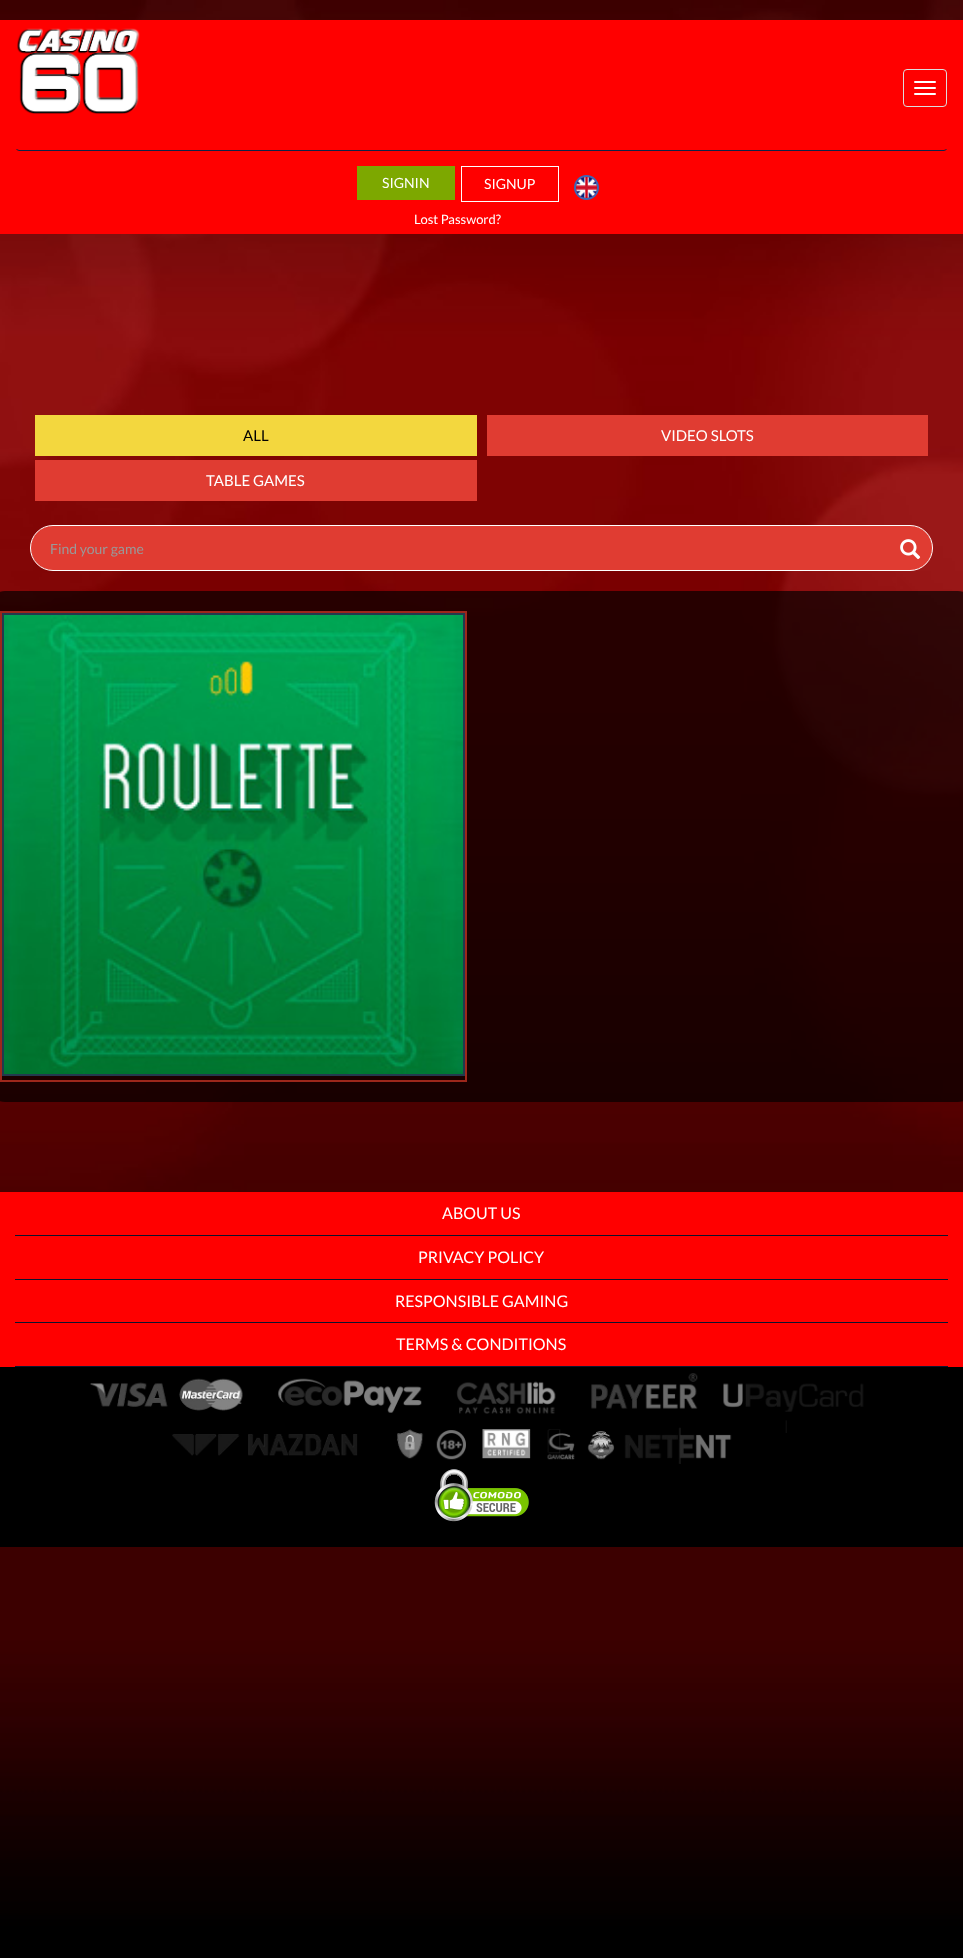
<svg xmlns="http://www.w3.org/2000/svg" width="963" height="1958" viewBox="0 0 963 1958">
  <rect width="100%" height="100%" fill="#ffffff"/>
  <image x="0" y="0" width="963" height="1958" href="img1.png"/>
  <rect x="0" y="20" width="963" height="214" fill="#ff0000"/>
  <image x="17" y="28" width="123" height="86" href="img2.png"/>
  <path d="M946.5 149.5L944 150.5H19L16.5 149.5" fill="none" stroke="#0e2348"/>
  <rect x="903.5" y="69.5" width="43" height="37" rx="3.5" fill="none" stroke="#dddddd"/>
  <rect x="914" y="81" width="22" height="2" rx="1" fill="#ffffff"/>
  <rect x="914" y="87" width="22" height="2" rx="1" fill="#ffffff"/>
  <rect x="914" y="93" width="22" height="2" rx="1" fill="#ffffff"/>
  <rect x="357" y="166" width="98" height="34" fill="#7da800"/>
  <text x="382" y="188" font-family="Lato" font-size="14" fill="#ffffff">SIGNIN</text>
  <rect x="461.5" y="166.5" width="97" height="35" fill="none" stroke="#ffffff"/>
  <text x="484" y="189" font-family="Lato" font-size="14" fill="#ffffff">SIGNUP</text>
  <text x="414" y="224" font-family="Lato" font-size="13" fill="#ffffff">Lost Password?</text>
  <circle cx="586.5" cy="187.5" r="11.5" fill="none" stroke="#3967b9" stroke-width="2"/>
  <image x="576" y="177" width="21" height="21" href="img3.png"/>
  <rect x="35" y="415" width="442" height="41" fill="#f3d73e"/>
  <text x="243" y="441" font-family="Lato" font-size="15" fill="#000000">ALL</text>
  <rect x="487" y="415" width="441" height="41" fill="#e03c32"/>
  <text x="661" y="441" font-family="Lato" font-size="15" fill="#ffffff">VIDEO SLOTS</text>
  <rect x="35" y="460" width="442" height="41" fill="#e03c32"/>
  <text x="206" y="486" font-family="Lato" font-size="15" fill="#ffffff">TABLE GAMES</text>
  <rect x="30.5" y="525.5" width="902" height="45" rx="22.5" fill="#e03c32" stroke="#ffffff"/>
  <text x="50" y="554" font-family="Lato" font-size="14" fill="#999999">Find your game</text>
  <image x="900" y="539" width="21" height="21" href="img4.png"/>
  <rect x="-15" y="591" width="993" height="511" rx="20" fill="#000000" fill-opacity="0.68"/>
  <rect x="1" y="612" width="465" height="469" fill="none" stroke="#9d271b" stroke-width="2"/>
  <rect x="3" y="614" width="461" height="461" fill="none" stroke="#23394e" stroke-width="2"/>
  <image x="4" y="615" width="459" height="459" href="img5.png"/>
  <rect x="0" y="1192" width="963" height="175" fill="#ff0000"/>
  <rect x="15" y="1235" width="933" height="1" fill="#0d142e"/>
  <text x="442" y="1219" font-family="Lato" font-size="16" fill="#ffffff">ABOUT US</text>
  <rect x="15" y="1279" width="933" height="1" fill="#0d142e"/>
  <text x="418" y="1263" font-family="Lato" font-size="16" fill="#ffffff">PRIVACY POLICY</text>
  <rect x="15" y="1322" width="933" height="1" fill="#0d142e"/>
  <text x="395" y="1307" font-family="Lato" font-size="16" fill="#ffffff">RESPONSIBLE GAMING</text>
  <rect x="15" y="1366" width="933" height="1" fill="#0d142e"/>
  <text x="396" y="1350" font-family="Lato" font-size="16" fill="#ffffff">TERMS &amp; CONDITIONS</text>
  <rect x="0" y="1367" width="963" height="180" fill="#000000"/>
  <image x="90" y="1373" width="774" height="91" href="img6.png"/>
  <image x="434" y="1469" width="95" height="53" href="img7.png"/>
</svg>
